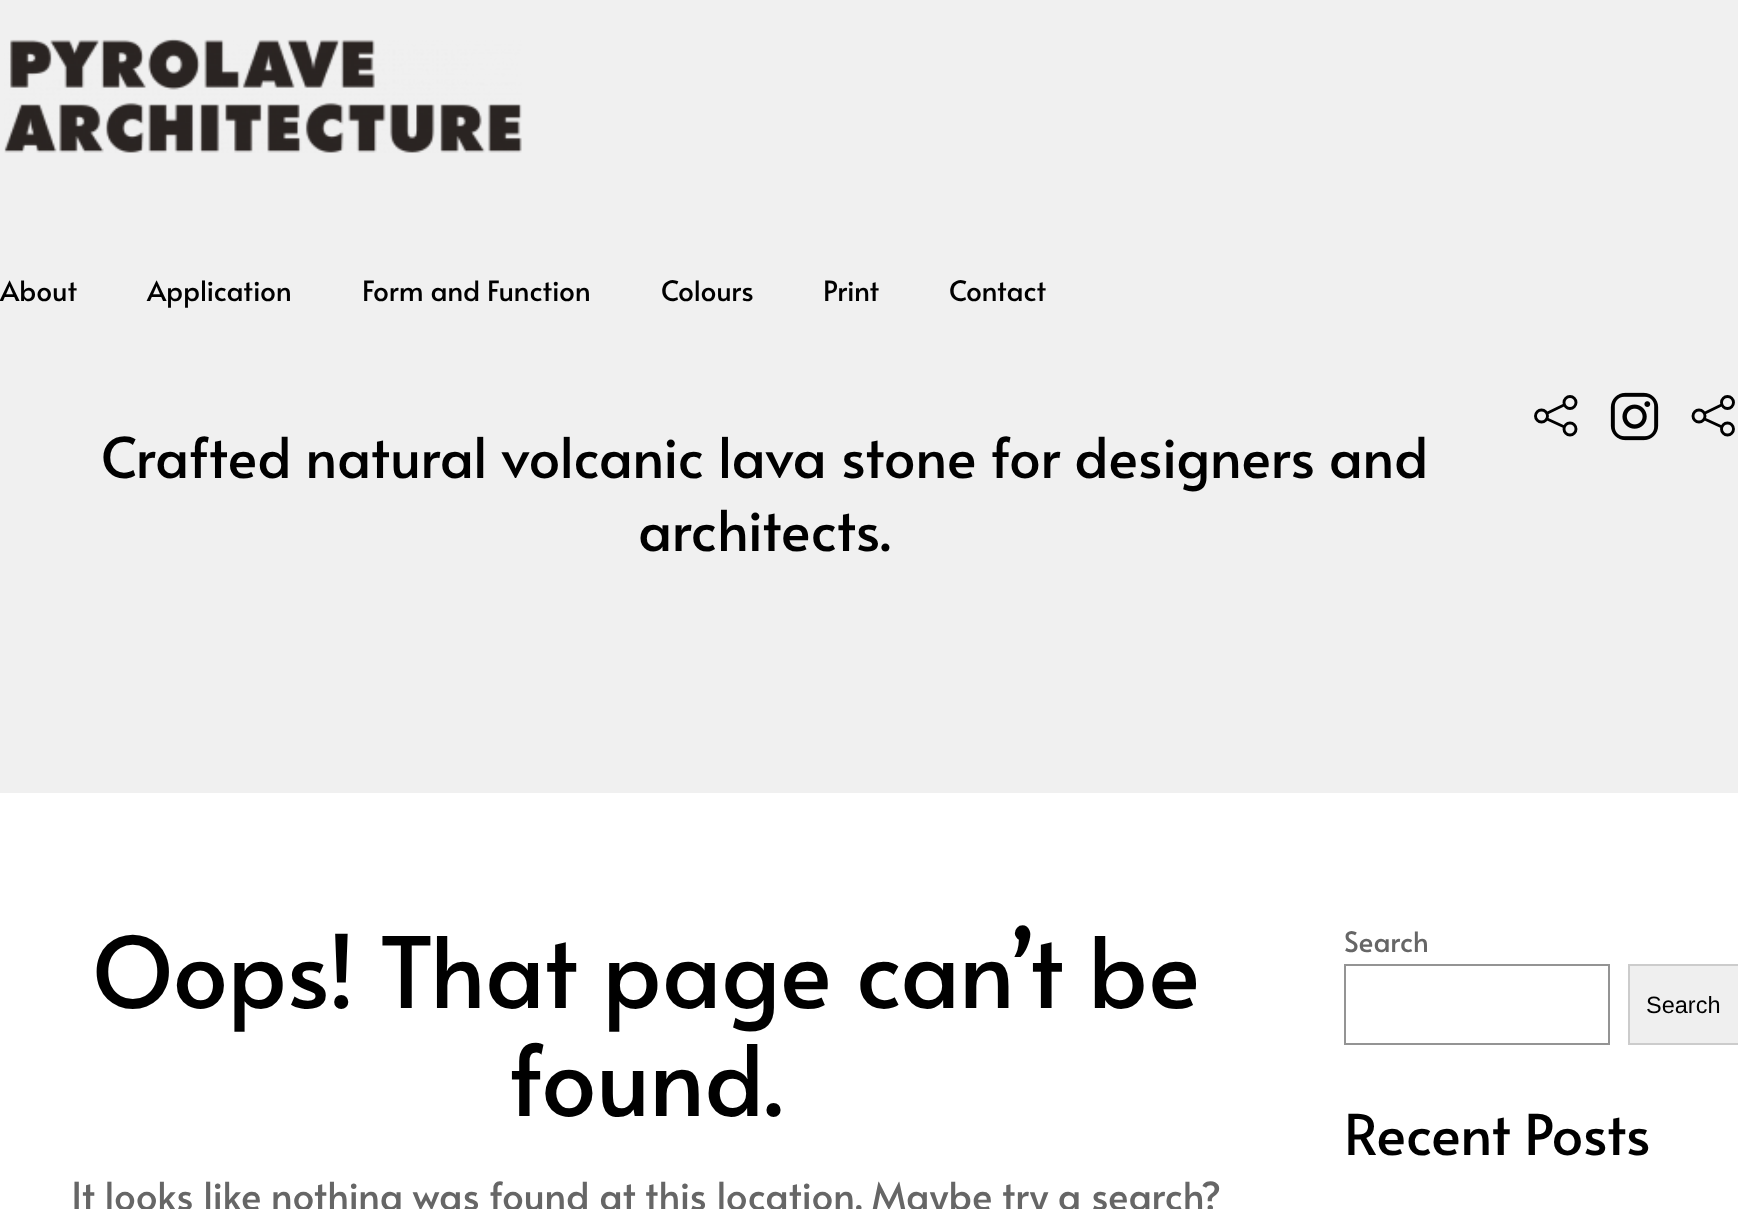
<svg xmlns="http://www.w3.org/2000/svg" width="1738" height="1209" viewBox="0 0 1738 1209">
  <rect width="100%" height="100%" fill="#ffffff"/>
  <rect x="0" y="0" width="1738" height="793" fill="#f0f0f0"/>
  <image x="4" y="38" width="518" height="115" href="img1.png"/>
  <text x="0" y="301" font-family="Alata" font-size="28" fill="#000000">About</text>
  <text x="147" y="301" font-family="Alata" font-size="28" fill="#000000">Application</text>
  <text x="362" y="301" font-family="Alata" font-size="28" fill="#000000">Form and Function</text>
  <text x="661" y="301" font-family="Alata" font-size="28" fill="#000000">Colours</text>
  <text x="823" y="301" font-family="Alata" font-size="28" fill="#000000">Print</text>
  <text x="949" y="301" font-family="Alata" font-size="28" fill="#000000">Contact</text>
  <text x="101" y="478" font-family="Alata" font-size="56" fill="#000000">Crafted natural volcanic lava stone for designers and</text>
  <text x="638" y="551" font-family="Alata" font-size="56" fill="#000000">architects.</text>
  <path d="M1564.5 427L1546 418.5M1565 404.5L1546.5 413.5" fill="none" stroke="#000000" stroke-width="2.9"/>
  <circle cx="1541.5" cy="416" r="6" fill="none" stroke="#000000" stroke-width="2.9"/>
  <circle cx="1570" cy="402.5" r="6" fill="none" stroke="#000000" stroke-width="2.9"/>
  <circle cx="1570" cy="429" r="6" fill="none" stroke="#000000" stroke-width="2.9"/>
  <image x="1610" y="392" width="49" height="49" href="img2.png"/>
  <path d="M1722 427L1703.5 418.5M1722.5 404.5L1704 413.5" fill="none" stroke="#000000" stroke-width="2.9"/>
  <circle cx="1699" cy="416" r="6" fill="none" stroke="#000000" stroke-width="2.9"/>
  <circle cx="1727.5" cy="402.5" r="6" fill="none" stroke="#000000" stroke-width="2.9"/>
  <circle cx="1727.5" cy="429" r="6" fill="none" stroke="#000000" stroke-width="2.9"/>
  <text x="92" y="1008" font-family="Alata" font-size="98" fill="#000000">Oops! That page can’t be</text>
  <text x="508" y="1116" font-family="Alata" font-size="98" fill="#000000">found.</text>
  <text x="71" y="1210" font-family="Alata" font-size="38.5" fill="#666666">It looks like nothing was found at this location. Maybe try a search?</text>
  <text x="1344" y="952" font-family="Alata" font-size="28" fill="#666666">Search</text>
  <rect x="1345" y="965" width="264" height="79" fill="none" stroke="#949494" stroke-width="2"/>
  <rect x="1629" y="965" width="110" height="79" fill="#efefef" stroke="#cccccc" stroke-width="2"/>
  <text x="1646" y="1013" font-family="Liberation Sans" font-size="23.5" fill="#000000">Search</text>
  <text x="1344" y="1155" font-family="Alata" font-size="56" fill="#000000">Recent Posts</text>
</svg>
